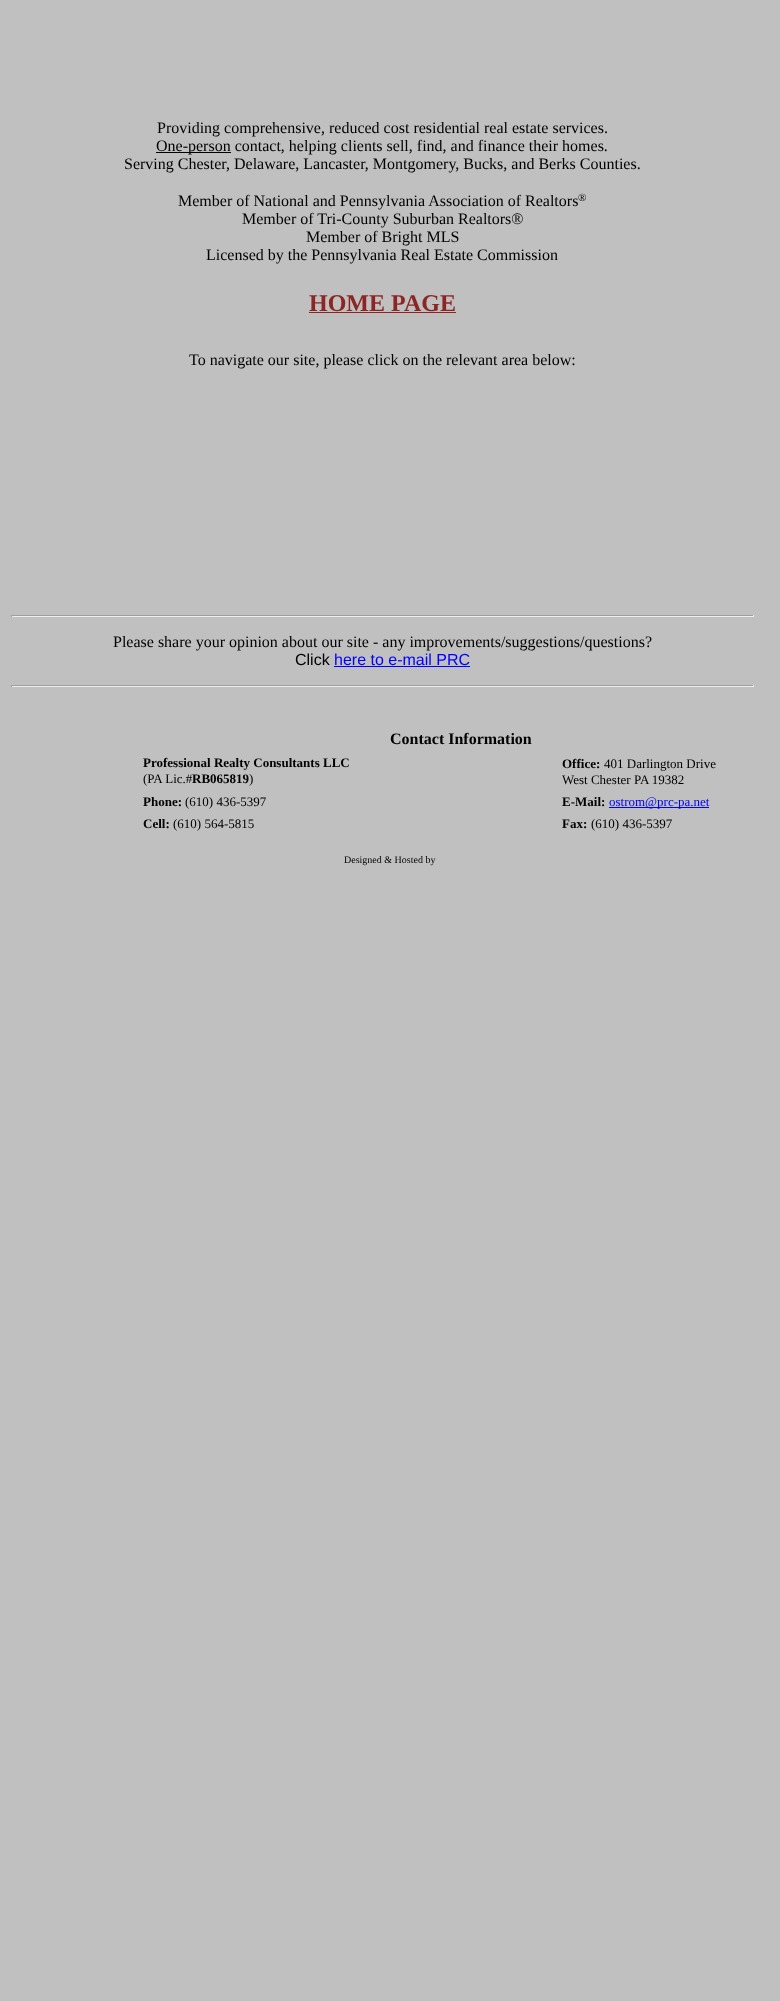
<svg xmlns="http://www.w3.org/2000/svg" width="780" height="2001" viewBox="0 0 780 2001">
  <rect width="100%" height="100%" fill="#c0c0c0"/>
  <text x="157" y="133" font-family="Liberation Serif" font-size="16" fill="#000000">Providing comprehensive, reduced cost residential real estate services.</text>
  <rect x="156" y="152" width="75" height="1" fill="#000000"/>
  <text x="156" y="151" font-family="Liberation Serif" font-size="16" fill="#000000">One-person contact, helping clients sell, find, and finance their homes.</text>
  <text x="124" y="169" font-family="Liberation Serif" font-size="16" fill="#000000">Serving Chester, Delaware, Lancaster, Montgomery, Bucks, and Berks Counties.</text>
  <text x="178" y="206" font-family="Liberation Serif" font-size="16" fill="#000000">Member of National and Pennsylvania Association of Realtors</text>
  <text x="578" y="201" font-family="Liberation Serif" font-size="11" fill="#000000">®</text>
  <text x="242" y="224" font-family="Liberation Serif" font-size="16" fill="#000000">Member of Tri-County Suburban Realtors®</text>
  <text x="306" y="242" font-family="Liberation Serif" font-size="16" fill="#000000">Member of Bright MLS</text>
  <text x="206" y="260" font-family="Liberation Serif" font-size="16" fill="#000000">Licensed by the Pennsylvania Real Estate Commission</text>
  <text x="309" y="311" font-family="Liberation Serif" font-size="24" font-weight="bold" fill="#8c2625">HOME PAGE</text>
  <rect x="309" y="312" width="147" height="1" fill="#8c2625"/>
  <text x="189" y="365" font-family="Liberation Serif" font-size="16" fill="#000000">To navigate our site, please click on the relevant area below:</text>
  <rect x="11" y="615" width="743" height="1" fill="#9f9f9f"/>
  <rect x="753" y="615" width="1" height="2" fill="#eeeeee"/>
  <rect x="11" y="616" width="743" height="1" fill="#eeeeee"/>
  <rect x="11" y="615" width="1" height="2" fill="#9f9f9f"/>
  <text x="113" y="647" font-family="Liberation Serif" font-size="16" fill="#000000">Please share your opinion about our site - any improvements/suggestions/questions?</text>
  <text x="295" y="665" font-family="Liberation Sans" font-size="16" fill="#000000">Click</text>
  <text x="334" y="665" font-family="Liberation Sans" font-size="16" fill="#0000ff">here to e-mail PRC</text>
  <rect x="334" y="666" width="136" height="1" fill="#0000ff"/>
  <rect x="11" y="685" width="743" height="1" fill="#9f9f9f"/>
  <rect x="753" y="685" width="1" height="2" fill="#eeeeee"/>
  <rect x="11" y="686" width="743" height="1" fill="#eeeeee"/>
  <rect x="11" y="685" width="1" height="2" fill="#9f9f9f"/>
  <text x="390" y="744" font-family="Liberation Serif" font-size="16" font-weight="bold" fill="#000000">Contact Information</text>
  <text x="143" y="767" font-family="Liberation Serif" font-size="13" font-weight="bold" fill="#000000">Professional Realty Consultants LLC</text>
  <text x="143" y="783" font-family="Liberation Serif" font-size="13" fill="#000000">(PA Lic.#</text>
  <text x="192" y="783" font-family="Liberation Serif" font-size="13" font-weight="bold" fill="#000000">RB065819</text>
  <text x="249" y="783" font-family="Liberation Serif" font-size="13" fill="#000000">)</text>
  <text x="562" y="768" font-family="Liberation Serif" font-size="13" font-weight="bold" fill="#000000">Office:</text>
  <text x="604" y="768" font-family="Liberation Serif" font-size="13" fill="#000000">401 Darlington Drive</text>
  <text x="562" y="784" font-family="Liberation Serif" font-size="13" fill="#000000">West Chester PA 19382</text>
  <text x="143" y="806" font-family="Liberation Serif" font-size="13" font-weight="bold" fill="#000000">Phone:</text>
  <text x="185" y="806" font-family="Liberation Serif" font-size="13" fill="#000000">(610) 436-5397</text>
  <text x="562" y="806" font-family="Liberation Serif" font-size="13" font-weight="bold" fill="#000000">E-Mail:</text>
  <rect x="609" y="807" width="100" height="1" fill="#0000ff"/>
  <text x="609" y="806" font-family="Liberation Serif" font-size="13" fill="#0000ff">ostrom@prc-pa.net</text>
  <text x="143" y="828" font-family="Liberation Serif" font-size="13" font-weight="bold" fill="#000000">Cell:</text>
  <text x="173" y="828" font-family="Liberation Serif" font-size="13" fill="#000000">(610) 564-5815</text>
  <text x="562" y="828" font-family="Liberation Serif" font-size="13" font-weight="bold" fill="#000000">Fax:</text>
  <text x="591" y="828" font-family="Liberation Serif" font-size="13" fill="#000000">(610) 436-5397</text>
  <text x="344" y="863" font-family="Liberation Serif" font-size="10" fill="#000000">Designed &amp; Hosted by</text>
</svg>
